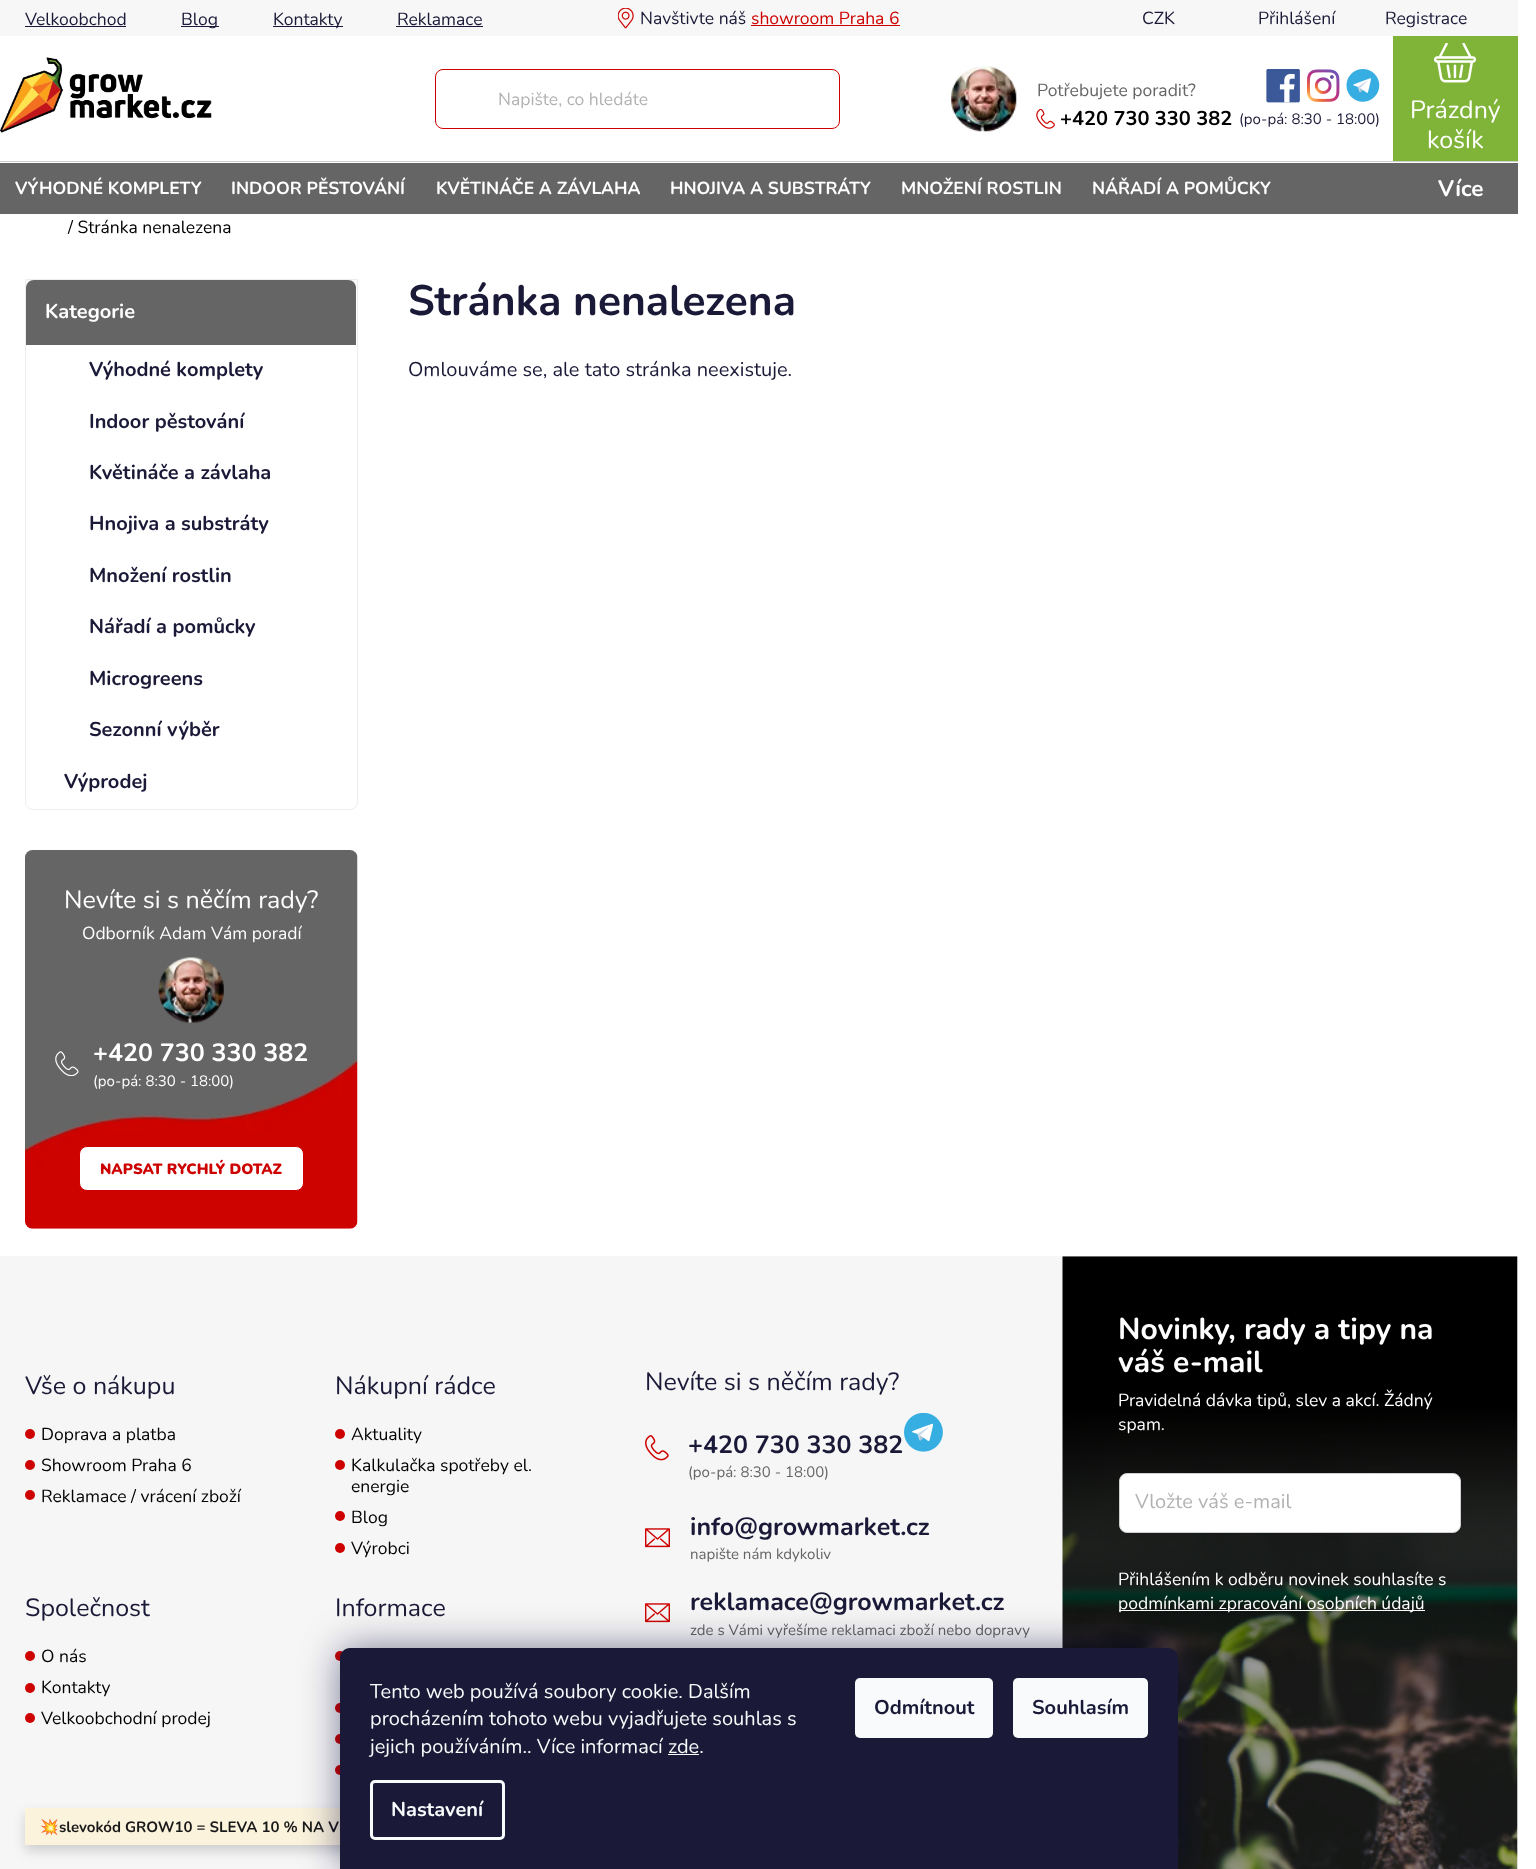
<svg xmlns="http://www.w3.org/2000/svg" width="1536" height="1869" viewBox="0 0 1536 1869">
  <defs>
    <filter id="blur1" x="-50%" y="-200%" width="200%" height="500%"><feGaussianBlur stdDeviation="6"/></filter>
    <filter id="blur2" x="-50%" y="-200%" width="200%" height="500%"><feGaussianBlur stdDeviation="19"/></filter>
  </defs>
  <rect width="100%" height="100%" fill="#ffffff"/>
  <rect x="0" y="0" width="1518" height="36" fill="#f7f7f7"/>
  <text x="25" y="25" font-family="Nunito" font-size="17.5" fill="#1a1937">Velkoobchod</text>
  <rect x="25" y="26" width="101" height="1" fill="#1a1937"/>
  <rect x="181" y="26" width="38" height="1" fill="#1a1937"/>
  <text x="181" y="25" font-family="Nunito" font-size="17.5" fill="#1a1937">Blog</text>
  <rect x="273" y="26" width="70" height="1" fill="#1a1937"/>
  <text x="273" y="25" font-family="Nunito" font-size="17.5" fill="#1a1937">Kontakty</text>
  <text x="397" y="25" font-family="Nunito" font-size="17.5" fill="#1a1937">Reklamace</text>
  <rect x="396" y="26" width="87" height="1" fill="#1a1937"/>
  <image x="618" y="8" width="16" height="21" href="img1.png"/>
  <text x="640" y="24" font-family="Nunito" font-size="17.5" fill="#1a1937">Navštivte náš</text>
  <text x="751" y="24" font-family="Nunito" font-size="17.5" fill="#cd0200">showroom Praha 6</text>
  <rect x="751" y="25" width="149" height="1" fill="#cd0200"/>
  <text x="1142" y="24" font-family="Nunito" font-size="17.5" fill="#1a1937">CZK</text>
  <text x="1258" y="24" font-family="Nunito" font-size="17.5" fill="#1a1937">Přihlášení</text>
  <text x="1385" y="24" font-family="Nunito" font-size="17.5" fill="#1a1937">Registrace</text>
  <image x="0" y="57" width="212" height="76" href="img2.png"/>
  <rect x="435.5" y="69.5" width="404" height="59" rx="7.5" fill="none" stroke="#cd0200"/>
  <text x="498" y="105" font-family="Nunito" font-size="17.5" fill="#b2b2b2">Napište, co hledáte</text>
  <image x="951" y="66" width="66" height="66" href="img3.png"/>
  <text x="1037" y="96" font-family="Nunito" font-size="17.5" fill="#656565">Potřebujete poradit?</text>
  <image x="1266" y="69" width="34" height="34" href="img4.png"/>
  <image x="1307" y="69" width="33" height="33" href="img5.png"/>
  <image x="1346" y="69" width="34" height="33" href="img6.png"/>
  <image x="1036" y="109" width="19" height="20" href="img7.png"/>
  <text x="1060" y="125" font-family="Nunito" font-size="20" font-weight="bold" fill="#000000">+420 730 330 382</text>
  <text x="1239" y="124" font-family="Nunito" font-size="15" fill="#1a1937">(po-pá: 8:30 - 18:00)</text>
  <rect x="1393" y="36" width="125" height="125" fill="#7fb438"/>
  <image x="1434" y="43" width="42" height="40" href="img8.png"/>
  <text x="1410" y="118" font-family="Nunito" font-size="25" fill="#ffffff">Prázdný</text>
  <text x="1427" y="148" font-family="Nunito" font-size="25" fill="#ffffff">košík</text>
  <rect x="0" y="163" width="1518" height="51" fill="#656565"/>
  <rect x="0" y="161" width="1518" height="1" fill="#cfcfcf"/>
  <text x="15" y="194" font-family="Nunito" font-size="17.5" font-weight="bold" fill="#ffffff">VÝHODNÉ KOMPLETY</text>
  <text x="231" y="194" font-family="Nunito" font-size="17.5" font-weight="bold" fill="#ffffff">INDOOR PĚSTOVÁNÍ</text>
  <text x="436" y="194" font-family="Nunito" font-size="17.5" font-weight="bold" fill="#ffffff">KVĚTINÁČE A ZÁVLAHA</text>
  <text x="670" y="194" font-family="Nunito" font-size="17.5" font-weight="bold" fill="#ffffff">HNOJIVA A SUBSTRÁTY</text>
  <text x="901" y="194" font-family="Nunito" font-size="17.5" font-weight="bold" fill="#ffffff">MNOŽENÍ ROSTLIN</text>
  <text x="1092" y="194" font-family="Nunito" font-size="17.5" font-weight="bold" fill="#ffffff">NÁŘADÍ A POMŮCKY</text>
  <text x="1438" y="196" font-family="Nunito" font-size="22.5" font-weight="bold" fill="#ffffff">Více</text>
  <text x="68" y="233" font-family="Nunito" font-size="17.5" fill="#000000">/ Stránka nenalezena</text>
  <path d="M25.5 279.5H357.5V802C357.5 806 354 809.5 350 809.5H33C29 809.5 25.5 806 25.5 802Z" fill="none" stroke="#ededed"/>
  <path d="M34 280H348C352.5 280 356 283.5 356 288V345H26V288C26 283.5 29.5 280 34 280Z" fill="#656565"/>
  <text x="45" y="318" font-family="Nunito" font-size="20" font-weight="bold" fill="#ffffff">Kategorie</text>
  <text x="89" y="376" font-family="Nunito" font-size="20" font-weight="bold" fill="#1a1937">Výhodné komplety</text>
  <text x="89" y="428" font-family="Nunito" font-size="20" font-weight="bold" fill="#1a1937">Indoor pěstování</text>
  <text x="89" y="479" font-family="Nunito" font-size="20" font-weight="bold" fill="#1a1937">Květináče a závlaha</text>
  <text x="89" y="530" font-family="Nunito" font-size="20" font-weight="bold" fill="#1a1937">Hnojiva a substráty</text>
  <text x="89" y="582" font-family="Nunito" font-size="20" font-weight="bold" fill="#1a1937">Množení rostlin</text>
  <text x="89" y="633" font-family="Nunito" font-size="20" font-weight="bold" fill="#1a1937">Nářadí a pomůcky</text>
  <text x="89" y="685" font-family="Nunito" font-size="20" font-weight="bold" fill="#1a1937">Microgreens</text>
  <text x="89" y="736" font-family="Nunito" font-size="20" font-weight="bold" fill="#1a1937">Sezonní výběr</text>
  <text x="64" y="788" font-family="Nunito" font-size="20" font-weight="bold" fill="#1a1937">Výprodej</text>
  <image x="25" y="850" width="333" height="379" href="img9.png"/>
  <text x="64" y="908" font-family="Nunito" font-size="25" fill="#ffffff">Nevíte si s něčím rady?</text>
  <text x="82" y="939" font-family="Nunito" font-size="17.5" fill="#ffffff">Odborník Adam Vám poradí</text>
  <image x="158" y="957" width="66" height="66" href="img10.png"/>
  <image x="55" y="1051" width="24" height="25" href="img11.png"/>
  <text x="93" y="1061" font-family="Nunito" font-size="25" font-weight="bold" fill="#ffffff">+420 730 330 382</text>
  <text x="93" y="1086" font-family="Nunito" font-size="15" fill="#ffffff">(po-pá: 8:30 - 18:00)</text>
  <rect x="79.5" y="1146.5" width="224" height="44" rx="7.5" fill="#ffffff" stroke="#cd0200"/>
  <text x="100" y="1174" font-family="Nunito" font-size="15" font-weight="900" fill="#cd0200">NAPSAT RYCHLÝ DOTAZ</text>
  <text x="408" y="315" font-family="Nunito" font-size="42.5" font-weight="bold" fill="#1a1937">Stránka nenalezena</text>
  <text x="408" y="376" font-family="Nunito" font-size="20" fill="#1a1937">Omlouváme se, ale tato stránka neexistuje.</text>
  <rect x="0" y="1256" width="1518" height="613" fill="#f6f6f6"/>
  <text x="25" y="1394" font-family="Nunito" font-size="25" fill="#1a1937">Vše o nákupu</text>
  <circle cx="30" cy="1434" r="5" fill="#cd0200"/>
  <text x="41" y="1440" font-family="Nunito" font-size="17.5" fill="#000000">Doprava a platba</text>
  <circle cx="30" cy="1465" r="5" fill="#cd0200"/>
  <text x="41" y="1471" font-family="Nunito" font-size="17.5" fill="#000000">Showroom Praha 6</text>
  <circle cx="30" cy="1495" r="5" fill="#cd0200"/>
  <text x="41" y="1502" font-family="Nunito" font-size="17.5" fill="#000000">Reklamace / vrácení zboží</text>
  <text x="335" y="1394" font-family="Nunito" font-size="25" fill="#1a1937">Nákupní rádce</text>
  <circle cx="340" cy="1434" r="5" fill="#cd0200"/>
  <text x="351" y="1440" font-family="Nunito" font-size="17.5" fill="#000000">Aktuality</text>
  <circle cx="340" cy="1465" r="5" fill="#cd0200"/>
  <text x="351" y="1471" font-family="Nunito" font-size="17.5" fill="#000000">Kalkulačka spotřeby el.</text>
  <text x="351" y="1492" font-family="Nunito" font-size="17.5" fill="#000000">energie</text>
  <circle cx="340" cy="1516" r="5" fill="#cd0200"/>
  <text x="351" y="1523" font-family="Nunito" font-size="17.5" fill="#000000">Blog</text>
  <circle cx="340" cy="1548" r="5" fill="#cd0200"/>
  <text x="351" y="1554" font-family="Nunito" font-size="17.5" fill="#000000">Výrobci</text>
  <text x="25" y="1616" font-family="Nunito" font-size="25" fill="#1a1937">Společnost</text>
  <circle cx="30" cy="1656" r="5" fill="#cd0200"/>
  <text x="41" y="1662" font-family="Nunito" font-size="17.5" fill="#000000">O nás</text>
  <circle cx="30" cy="1688" r="5" fill="#cd0200"/>
  <text x="41" y="1693" font-family="Nunito" font-size="17.5" fill="#000000">Kontakty</text>
  <circle cx="30" cy="1718" r="5" fill="#cd0200"/>
  <text x="41" y="1724" font-family="Nunito" font-size="17.5" fill="#000000">Velkoobchodní prodej</text>
  <text x="335" y="1616" font-family="Nunito" font-size="25" fill="#1a1937">Informace</text>
  <circle cx="340" cy="1656" r="5" fill="#cd0200"/>
  <circle cx="340" cy="1708" r="5" fill="#cd0200"/>
  <circle cx="340" cy="1739" r="5" fill="#cd0200"/>
  <circle cx="340" cy="1770" r="5" fill="#cd0200"/>
  <text x="645" y="1390" font-family="Nunito" font-size="25" fill="#1a1937">Nevíte si s něčím rady?</text>
  <image x="645" y="1435" width="24" height="26" href="img12.png"/>
  <text x="688" y="1453" font-family="Nunito" font-size="25" font-weight="bold" fill="#1a1937">+420 730 330 382</text>
  <image x="904" y="1413" width="39" height="39" href="img13.png"/>
  <text x="688" y="1477" font-family="Nunito" font-size="15" fill="#656565">(po-pá: 8:30 - 18:00)</text>
  <image x="645" y="1528" width="25" height="20" href="img14.png"/>
  <text x="690" y="1535" font-family="Nunito" font-size="25" font-weight="bold" fill="#1a1937">info@growmarket.cz</text>
  <text x="690" y="1559" font-family="Nunito" font-size="15" fill="#656565">napište nám kdykoliv</text>
  <image x="645" y="1603" width="25" height="20" href="img14.png"/>
  <text x="690" y="1610" font-family="Nunito" font-size="25" font-weight="bold" fill="#1a1937">reklamace@growmarket.cz</text>
  <text x="690" y="1635" font-family="Nunito" font-size="15" fill="#656565">zde s Vámi vyřešíme reklamaci zboží nebo dopravy</text>
  <image x="1062" y="1256" width="456" height="613" href="img15.png"/>
  <text x="1118" y="1339" font-family="Nunito" font-size="30" font-weight="bold" fill="#ffffff">Novinky, rady a tipy na</text>
  <text x="1118" y="1372" font-family="Nunito" font-size="30" font-weight="bold" fill="#ffffff">váš e-mail</text>
  <text x="1118" y="1406" font-family="Nunito" font-size="17.5" fill="#ffffff">Pravidelná dávka tipů, slev a akcí. Žádný</text>
  <text x="1118" y="1430" font-family="Nunito" font-size="17.5" fill="#ffffff">spam.</text>
  <rect x="1119.5" y="1473.5" width="341" height="59" rx="7.5" fill="#ffffff" stroke="#cfcfcf"/>
  <text x="1135" y="1508" font-family="Nunito" font-size="20" fill="#b2b2b2">Vložte váš e-mail</text>
  <text x="1118" y="1585" font-family="Nunito" font-size="17.5" fill="#ffffff">Přihlášením k odběru novinek souhlasíte s</text>
  <rect x="1119" y="1610" width="306" height="1" fill="#ffffff"/>
  <text x="1118" y="1609" font-family="Nunito" font-size="17.5" fill="#ffffff">podmínkami zpracování osobních údajů</text>
  <rect x="25" y="1814" width="390" height="37" fill="#191919" fill-opacity="0.16" filter="url(#blur1)"/>
  <rect x="25" y="1808" width="315" height="37" fill="#fcf3dd"/>
  <text x="40" y="1832" font-family="Noto Color Emoji" font-size="15" font-weight="bold" fill="#191919">💥</text>
  <text x="59" y="1832" font-family="Nunito" font-size="15" font-weight="bold" fill="#191919">slevokód GROW10 = SLEVA 10 % NA V</text>
  <rect x="340" y="1648" width="838" height="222" rx="10" fill="#1b1939" fill-opacity="0.5" filter="url(#blur2)"/>
  <path d="M350 1648H1168C1173.5 1648 1178 1652.5 1178 1658V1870H340V1658C340 1652.5 344.5 1648 350 1648Z" fill="#1a1937"/>
  <text x="370" y="1698" font-family="Nunito" font-size="20" fill="#f8fafb">Tento web používá soubory cookie. Dalším</text>
  <text x="370" y="1725" font-family="Nunito" font-size="20" fill="#f8fafb">procházením tohoto webu vyjadřujete souhlas s</text>
  <text x="370" y="1753" font-family="Nunito" font-size="20" fill="#f8fafb">jejich používáním.. Více informací zde.</text>
  <rect x="668" y="1754" width="31" height="1" fill="#f8fafb"/>
  <rect x="371.5" y="1781.5" width="132" height="57" rx="3.5" fill="none" stroke="#f8fafb" stroke-width="3"/>
  <text x="391" y="1816" font-family="Nunito" font-size="20" font-weight="bold" fill="#f8fafb">Nastavení</text>
  <rect x="855" y="1678" width="138" height="60" rx="5" fill="#f8fafb"/>
  <text x="874" y="1714" font-family="Nunito" font-size="20" font-weight="bold" fill="#1a1937">Odmítnout</text>
  <rect x="1013" y="1678" width="135" height="60" rx="5" fill="#f8fafb"/>
  <text x="1032" y="1714" font-family="Nunito" font-size="20" font-weight="bold" fill="#1a1937">Souhlasím</text>
</svg>
